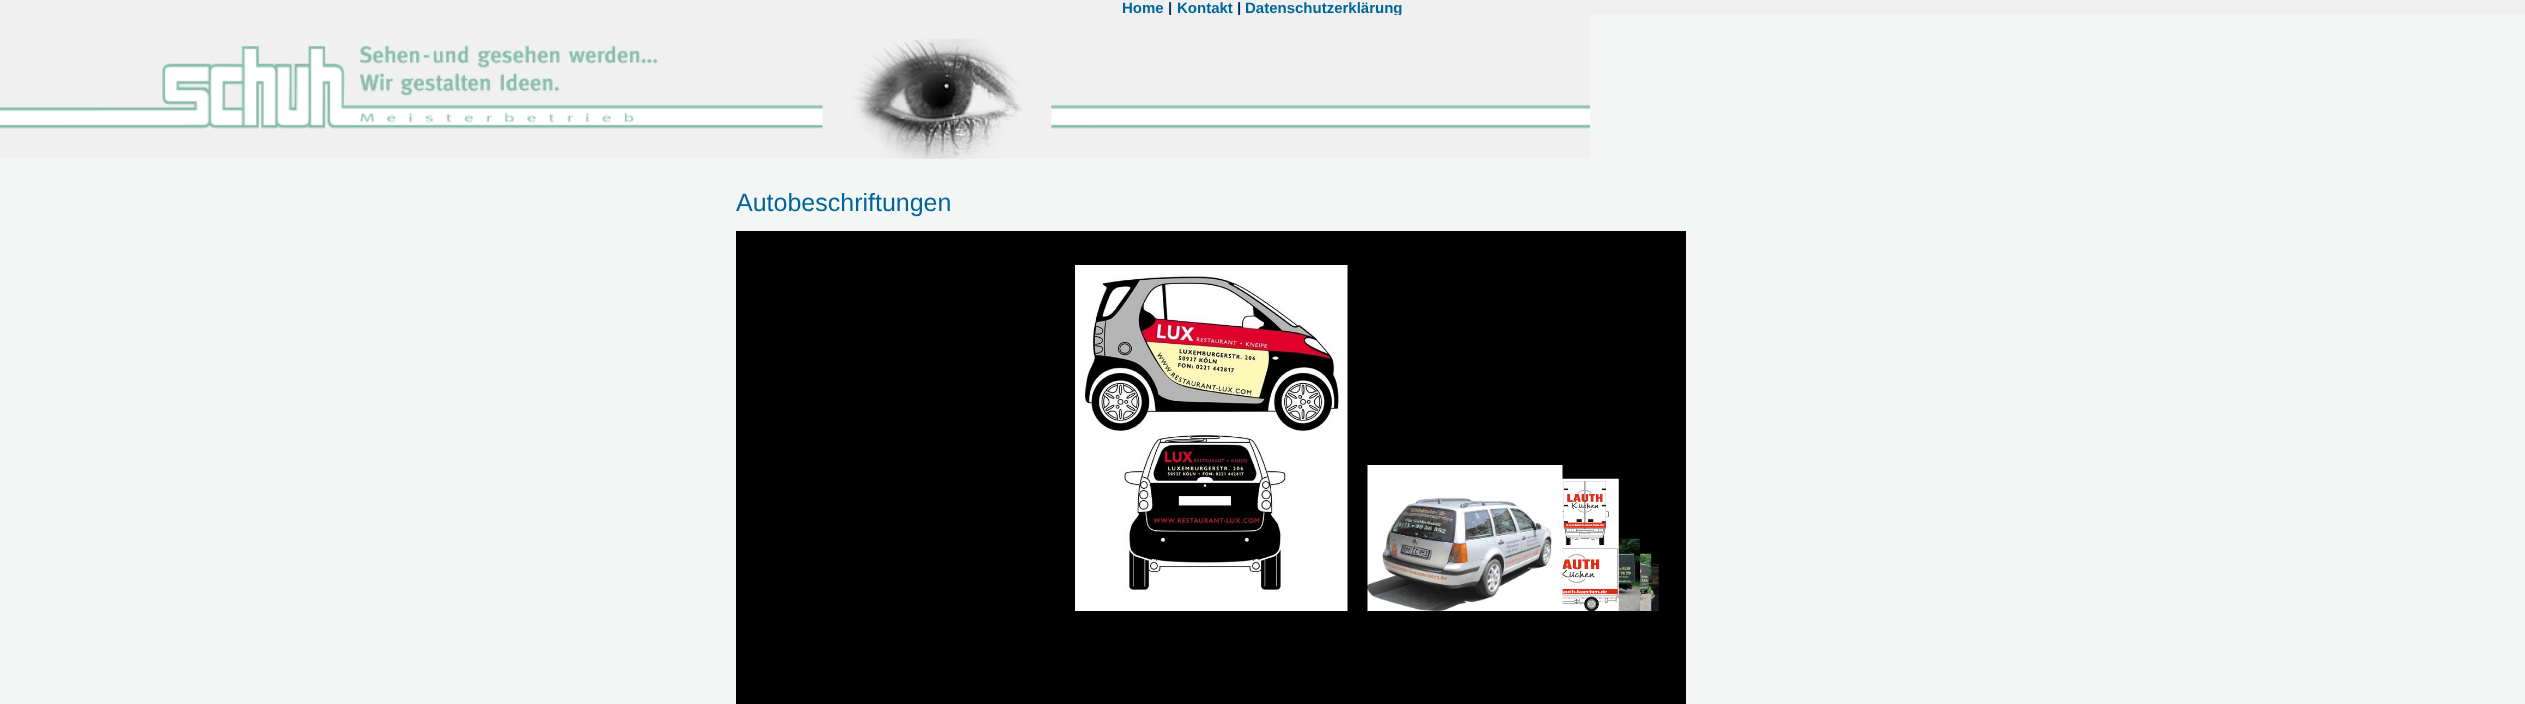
<svg xmlns="http://www.w3.org/2000/svg" width="2525" height="704" viewBox="0 0 2525 704">
  <rect width="100%" height="100%" fill="#f4f5f5"/>
  <rect x="0" y="0" width="2525" height="15" fill="#f0f0f0"/>
  <text x="1122" y="13" font-family="Liberation Sans" font-size="15" font-weight="bold" fill="#006699">Home</text>
  <text x="1168" y="13" font-family="Liberation Sans" font-size="15" font-weight="bold" fill="#003366">|</text>
  <text x="1177" y="13" font-family="Liberation Sans" font-size="15" font-weight="bold" fill="#006699">Kontakt</text>
  <text x="1237" y="13" font-family="Liberation Sans" font-size="15" font-weight="bold" fill="#003366">|</text>
  <text x="1245" y="13" font-family="Liberation Sans" font-size="15" font-weight="bold" fill="#006699">Datenschutzerklärung</text>
  <image x="0" y="15" width="1590" height="144" href="img1.png"/>
  <text x="736" y="211" font-family="Liberation Sans" font-size="25" fill="#006699">Autobeschriftungen</text>
  <rect x="736" y="231" width="950" height="473" fill="#000000"/>
  <image x="1075" y="265" width="273" height="346" href="img2.png"/>
  <image x="1618" y="538" width="22" height="73" href="img5.png"/>
  <image x="1562" y="478" width="57" height="133" href="img4.png"/>
  <image x="1367" y="465" width="196" height="147" href="img3.png"/>
  <rect x="1368" y="611" width="195" height="1" fill="#000000"/>
  <image x="1651" y="563" width="8" height="48" href="img7.png"/>
  <image x="1640" y="553" width="12" height="59" href="img6.png"/>
  <rect x="1640" y="611" width="11" height="1" fill="#000000"/>
</svg>
